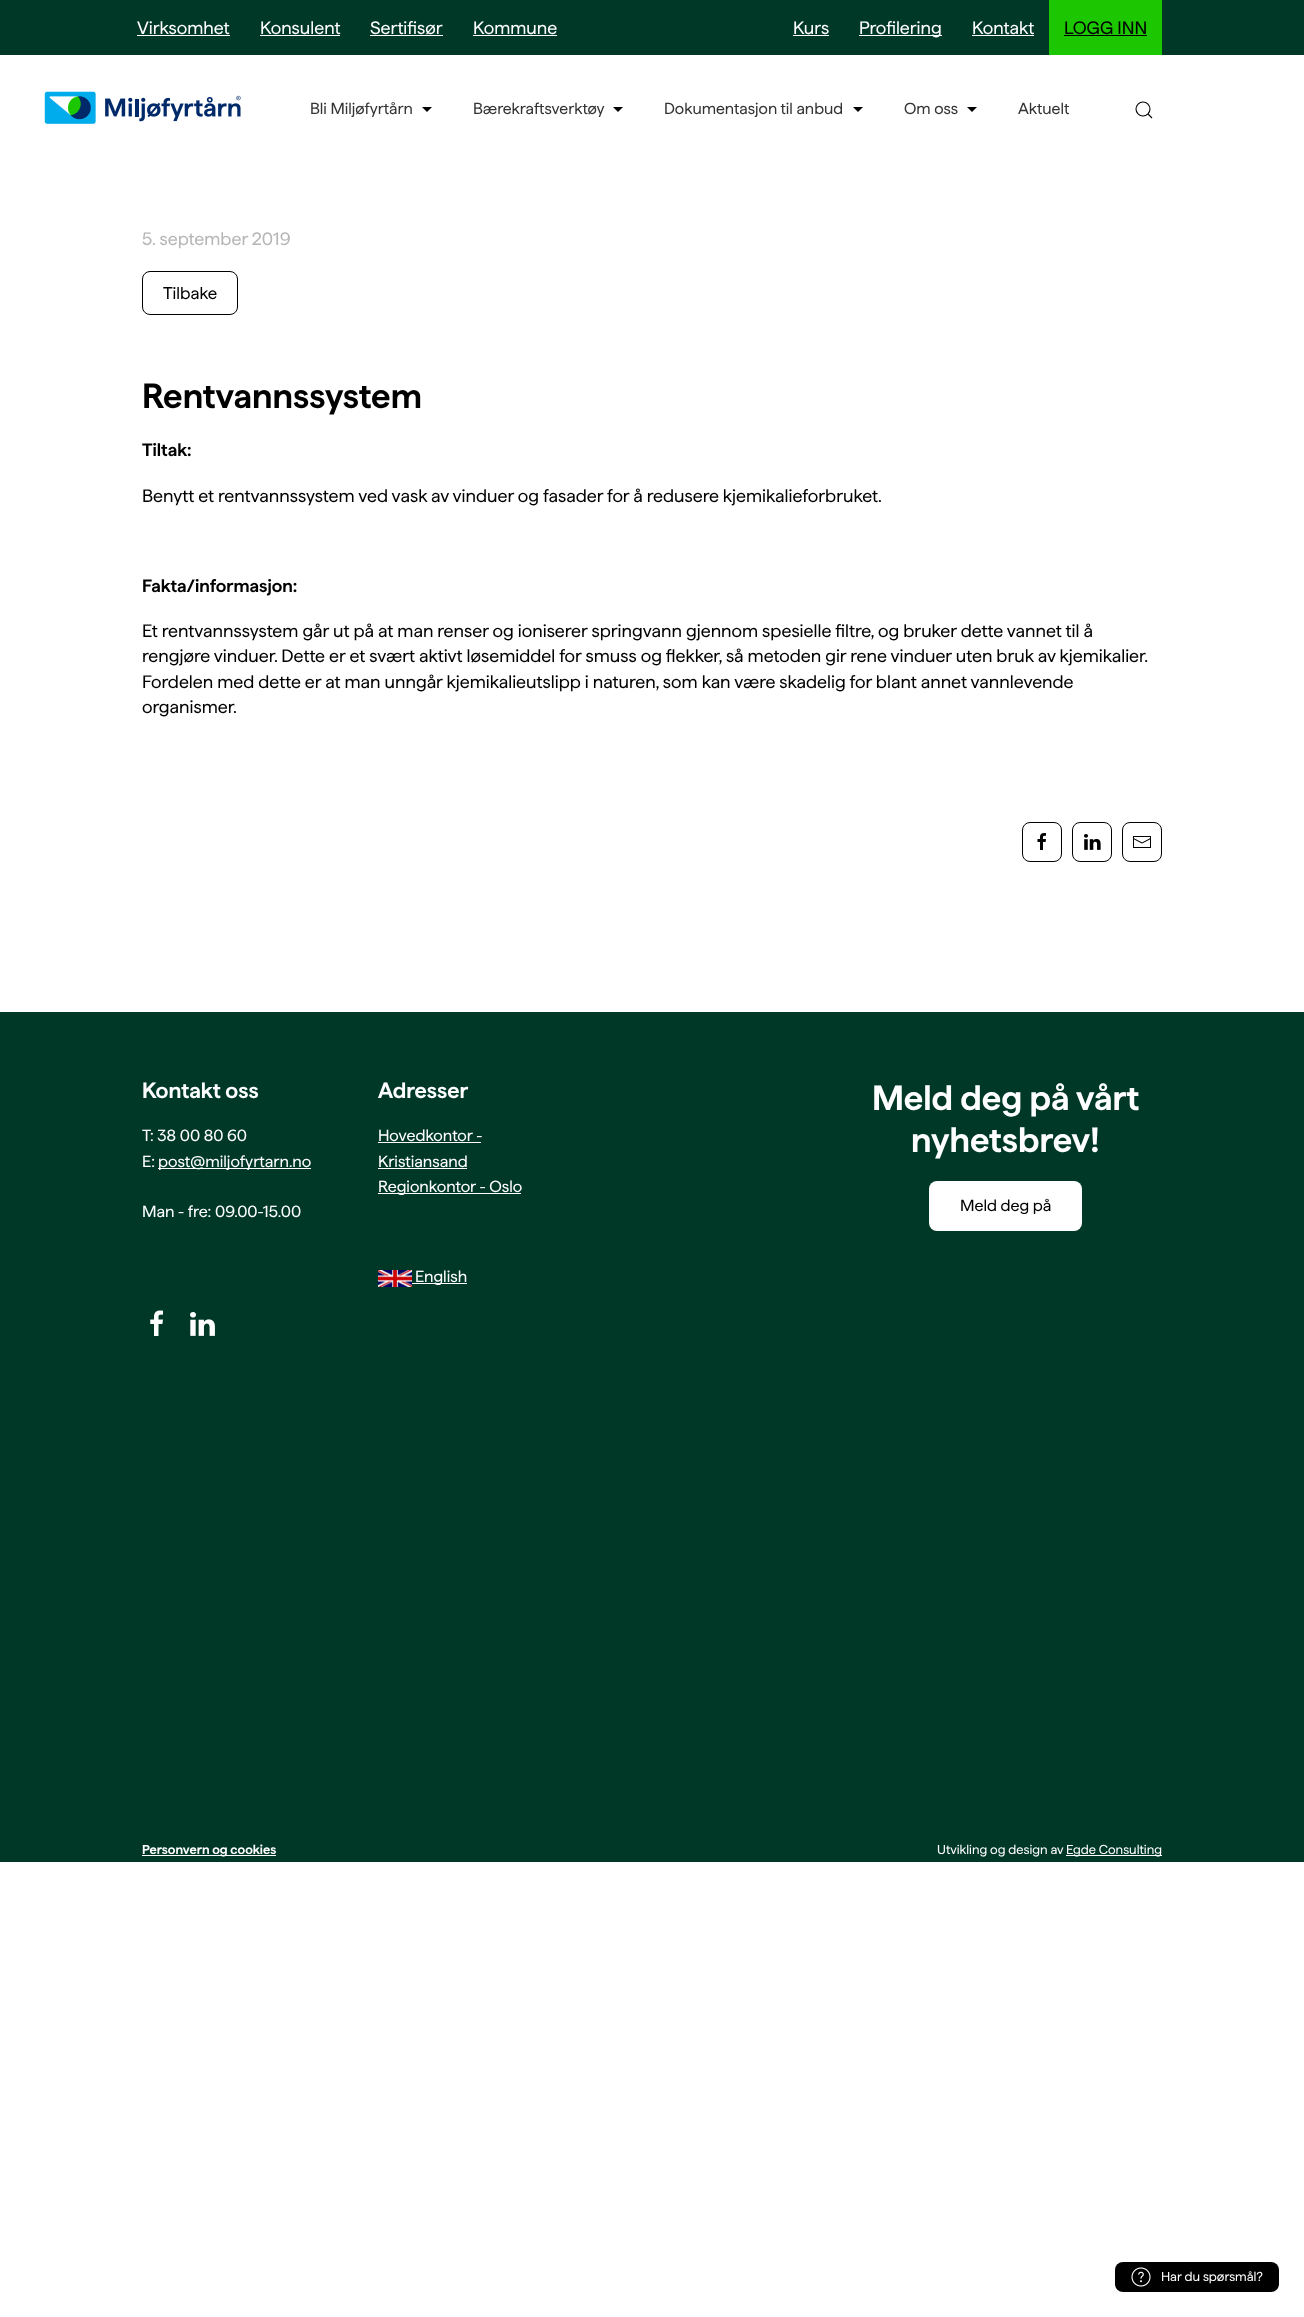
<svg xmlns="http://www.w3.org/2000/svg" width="1304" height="2317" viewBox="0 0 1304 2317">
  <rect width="100%" height="100%" fill="#ffffff"/>
  <rect x="0" y="0" width="1304" height="55" fill="#003827"/>
  <text x="137" y="34" font-family="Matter" font-size="18" fill="#ffffff">Virksomhet</text>
  <rect x="137" y="35" width="93" height="1" fill="#ffffff"/>
  <text x="260" y="34" font-family="Matter" font-size="18" fill="#ffffff">Konsulent</text>
  <rect x="260" y="35" width="80" height="1" fill="#ffffff"/>
  <text x="370" y="34" font-family="Matter" font-size="18" fill="#ffffff">Sertifisør</text>
  <rect x="370" y="35" width="73" height="1" fill="#ffffff"/>
  <text x="473" y="34" font-family="Matter" font-size="18" fill="#ffffff">Kommune</text>
  <rect x="473" y="35" width="84" height="1" fill="#ffffff"/>
  <text x="793" y="34" font-family="Matter" font-size="18" fill="#ffffff">Kurs</text>
  <rect x="793" y="35" width="36" height="1" fill="#ffffff"/>
  <rect x="859" y="35" width="83" height="1" fill="#ffffff"/>
  <text x="859" y="34" font-family="Matter" font-size="18" fill="#ffffff">Profilering</text>
  <text x="972" y="34" font-family="Matter" font-size="18" fill="#ffffff">Kontakt</text>
  <rect x="972" y="35" width="62" height="1" fill="#ffffff"/>
  <rect x="1049" y="0" width="113" height="55" fill="#1cc600"/>
  <text x="1064" y="34" font-family="Matter" font-size="18" fill="#000000">LOGG INN</text>
  <rect x="1064" y="35" width="83" height="1" fill="#000000"/>
  <image x="44" y="91" width="197" height="33" href="img1.png"/>
  <text x="310" y="114" font-family="Matter" font-size="16" fill="#343434">Bli Miljøfyrtårn</text>
  <path d="M422 107H432L427 112Z" fill="#000000"/>
  <text x="473" y="114" font-family="Matter" font-size="16" fill="#343434">Bærekraftsverktøy</text>
  <path d="M613 107H623L618 112Z" fill="#000000"/>
  <text x="664" y="114" font-family="Matter" font-size="16" fill="#343434">Dokumentasjon til anbud</text>
  <path d="M853 107H863L858 112Z" fill="#000000"/>
  <text x="904" y="114" font-family="Matter" font-size="16" fill="#343434">Om oss</text>
  <path d="M967 107H977L972 112Z" fill="#000000"/>
  <text x="1018" y="114" font-family="Matter" font-size="16" fill="#343434">Aktuelt</text>
  <circle cx="1143" cy="109" r="7" fill="none" stroke="#000000" stroke-width="1.1"/>
  <path d="M1148 114L1152 118Z" fill="none" stroke="#000000" stroke-width="1.1"/>
  <text x="142" y="245" font-family="Matter" font-size="18" fill="#b6b6b6">5. september 2019</text>
  <rect x="142.5" y="271.5" width="95" height="43" rx="7.5" fill="none" stroke="#000000"/>
  <text x="163" y="299" font-family="Matter" font-size="17" fill="#000000">Tilbake</text>
  <text x="142" y="408" font-family="Matter" font-size="35" font-weight="600" fill="#000000">Rentvannssystem</text>
  <text x="142" y="456" font-family="Matter" font-size="18" font-weight="600" fill="#000000">Tiltak:</text>
  <text x="142" y="502" font-family="Matter" font-size="18" fill="#000000">Benytt et rentvannssystem ved vask av vinduer og fasader for å redusere kjemikalieforbruket.</text>
  <text x="142" y="592" font-family="Matter" font-size="18" font-weight="600" fill="#000000">Fakta/informasjon:</text>
  <text x="142" y="637" font-family="Matter" font-size="18" fill="#000000">Et rentvannssystem går ut på at man renser og ioniserer springvann gjennom spesielle filtre, og bruker dette vannet til å</text>
  <text x="142" y="662" font-family="Matter" font-size="18" fill="#000000">rengjøre vinduer. Dette er et svært aktivt løsemiddel for smuss og flekker, så metoden gir rene vinduer uten bruk av kjemikalier.</text>
  <text x="142" y="688" font-family="Matter" font-size="18" fill="#000000">Fordelen med dette er at man unngår kjemikalieutslipp i naturen, som kan være skadelig for blant annet vannlevende</text>
  <text x="142" y="713" font-family="Matter" font-size="18" fill="#000000">organismer.</text>
  <rect x="1022.5" y="822.5" width="39" height="39" rx="7.5" fill="none" stroke="#000000"/>
  <image x="1037" y="833" width="9" height="17" href="img2.png"/>
  <rect x="1072.5" y="822.5" width="39" height="39" rx="7.5" fill="none" stroke="#000000"/>
  <image x="1084" y="834" width="17" height="16" href="img3.png"/>
  <rect x="1122.5" y="822.5" width="39" height="39" rx="7.5" fill="none" stroke="#000000"/>
  <image x="1133" y="836" width="18" height="12" href="img4.png"/>
  <rect x="0" y="1012" width="1304" height="850" fill="#003827"/>
  <text x="142" y="1098" font-family="Matter" font-size="22" font-weight="600" fill="#ffffff">Kontakt oss</text>
  <text x="142" y="1141" font-family="Matter" font-size="16.25" fill="#ffffff">T: 38 00 80 60</text>
  <text x="142" y="1167" font-family="Matter" font-size="16.25" fill="#ffffff">E:</text>
  <rect x="158" y="1168" width="153" height="1" fill="#ffffff"/>
  <text x="158" y="1167" font-family="Matter" font-size="16.25" fill="#ffffff">post@miljofyrtarn.no</text>
  <text x="142" y="1217" font-family="Matter" font-size="16.25" fill="#ffffff">Man - fre: 09.00-15.00</text>
  <text x="378" y="1098" font-family="Matter" font-size="22" font-weight="600" fill="#ffffff">Adresser</text>
  <text x="378" y="1141" font-family="Matter" font-size="16.25" fill="#ffffff">Hovedkontor -</text>
  <rect x="378" y="1142" width="103" height="1" fill="#ffffff"/>
  <text x="378" y="1167" font-family="Matter" font-size="16.25" fill="#ffffff">Kristiansand</text>
  <rect x="378" y="1168" width="89" height="1" fill="#ffffff"/>
  <rect x="378" y="1193" width="143" height="1" fill="#ffffff"/>
  <text x="378" y="1192" font-family="Matter" font-size="16.25" fill="#ffffff">Regionkontor - Oslo</text>
  <image x="378" y="1270" width="34" height="17" href="img5.png"/>
  <rect x="412" y="1283" width="55" height="1" fill="#ffffff"/>
  <text x="415" y="1282" font-family="Matter" font-size="16.25" fill="#ffffff">English</text>
  <image x="150" y="1310" width="13" height="26" href="img6.png"/>
  <image x="190" y="1312" width="25" height="24" href="img7.png"/>
  <text x="872" y="1110" font-family="Matter" font-size="35" font-weight="600" fill="#ffffff">Meld deg på vårt</text>
  <text x="911" y="1152" font-family="Matter" font-size="35" font-weight="600" fill="#ffffff">nyhetsbrev!</text>
  <rect x="929" y="1181" width="153" height="50" rx="8" fill="#ffffff"/>
  <text x="960" y="1211" font-family="Matter" font-size="16.25" fill="#000000">Meld deg på</text>
  <rect x="142" y="1855" width="134" height="1" fill="#ffffff"/>
  <text x="142" y="1854" font-family="Matter" font-size="13" font-weight="600" fill="#ffffff">Personvern og cookies</text>
  <text x="937" y="1854" font-family="Matter" font-size="13" fill="#ffffff">Utvikling og design av</text>
  <rect x="1066" y="1855" width="96" height="1" fill="#ffffff"/>
  <text x="1066" y="1854" font-family="Matter" font-size="13" fill="#ffffff">Egde Consulting</text>
  <rect x="1115" y="2262" width="164" height="30" rx="8" fill="#000000"/>
  <image x="1131" y="2267" width="20" height="20" href="img8.png"/>
  <text x="1161" y="2281" font-family="Matter" font-size="13" fill="#ffffff">Har du spørsmål?</text>
</svg>
